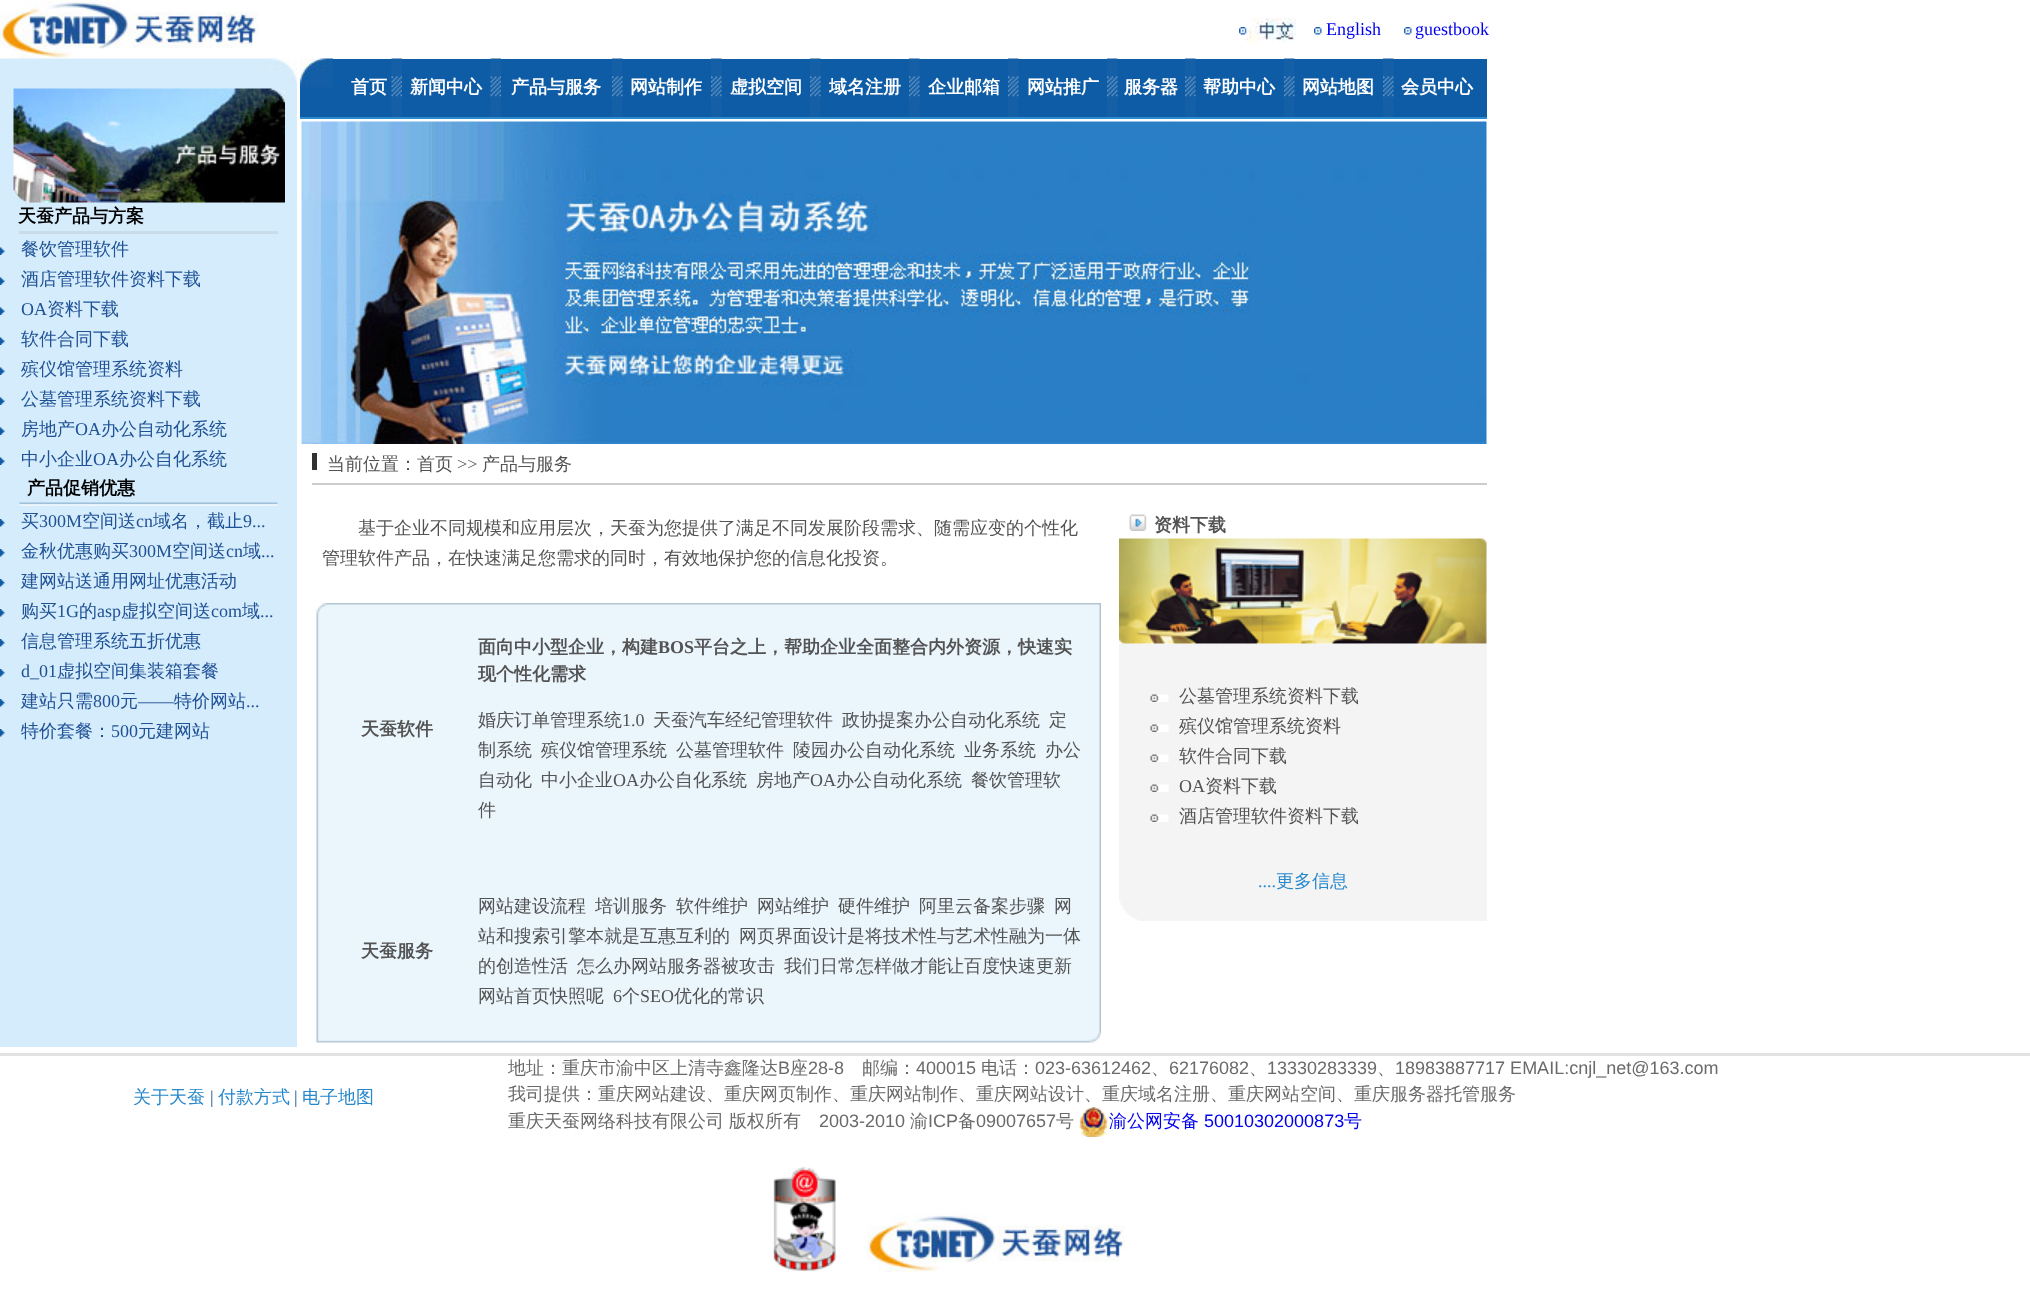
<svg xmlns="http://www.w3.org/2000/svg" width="2030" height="1315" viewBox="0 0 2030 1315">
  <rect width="100%" height="100%" fill="#ffffff"/>
  <image x="0" y="0" width="258" height="59" href="img1.png"/>
  <image x="1239" y="27" width="8" height="8" href="img2.png"/>
  <image x="1246" y="18" width="50" height="27" href="img3.png"/>
  <image x="1314" y="27" width="8" height="8" href="img4.png"/>
  <text x="1326" y="35" font-family="Liberation Serif" font-size="18" fill="#0000ee">English</text>
  <image x="1404" y="27" width="8" height="8" href="img4.png"/>
  <text x="1415" y="35" font-family="Liberation Serif" font-size="18" fill="#0000ee">guestbook</text>
  <rect x="300" y="59" width="1187" height="58" fill="#0e5ca6"/>
  <image x="300" y="58" width="33" height="30" href="img5.png"/>
  <text x="351" y="93" font-family="WenQuanYi Zen Hei" font-size="18" font-weight="bold" fill="#ffffff">首页</text>
  <image x="391" y="58" width="11" height="59" href="img6.png"/>
  <text x="410" y="93" font-family="WenQuanYi Zen Hei" font-size="18" font-weight="bold" fill="#ffffff">新闻中心</text>
  <image x="490" y="58" width="11" height="59" href="img7.png"/>
  <text x="511" y="93" font-family="WenQuanYi Zen Hei" font-size="18" font-weight="bold" fill="#ffffff">产品与服务</text>
  <image x="612" y="58" width="11" height="59" href="img8.png"/>
  <text x="630" y="93" font-family="WenQuanYi Zen Hei" font-size="18" font-weight="bold" fill="#ffffff">网站制作</text>
  <image x="711" y="58" width="11" height="59" href="img9.png"/>
  <text x="730" y="93" font-family="WenQuanYi Zen Hei" font-size="18" font-weight="bold" fill="#ffffff">虚拟空间</text>
  <image x="810" y="58" width="11" height="59" href="img8.png"/>
  <text x="829" y="93" font-family="WenQuanYi Zen Hei" font-size="18" font-weight="bold" fill="#ffffff">域名注册</text>
  <image x="909" y="58" width="11" height="59" href="img8.png"/>
  <text x="928" y="93" font-family="WenQuanYi Zen Hei" font-size="18" font-weight="bold" fill="#ffffff">企业邮箱</text>
  <image x="1008" y="58" width="11" height="59" href="img8.png"/>
  <text x="1027" y="93" font-family="WenQuanYi Zen Hei" font-size="18" font-weight="bold" fill="#ffffff">网站推广</text>
  <image x="1107" y="58" width="11" height="59" href="img9.png"/>
  <text x="1124" y="93" font-family="WenQuanYi Zen Hei" font-size="18" font-weight="bold" fill="#ffffff">服务器</text>
  <image x="1185" y="58" width="11" height="59" href="img9.png"/>
  <text x="1203" y="93" font-family="WenQuanYi Zen Hei" font-size="18" font-weight="bold" fill="#ffffff">帮助中心</text>
  <image x="1284" y="58" width="11" height="59" href="img9.png"/>
  <text x="1302" y="93" font-family="WenQuanYi Zen Hei" font-size="18" font-weight="bold" fill="#ffffff">网站地图</text>
  <image x="1383" y="58" width="11" height="59" href="img8.png"/>
  <text x="1401" y="93" font-family="WenQuanYi Zen Hei" font-size="18" font-weight="bold" fill="#ffffff">会员中心</text>
  <rect x="0" y="83" width="297" height="964" fill="#d5ecfc"/>
  <image x="0" y="58" width="297" height="25" href="img10.png"/>
  <image x="13" y="88" width="272" height="115" href="img11.png"/>
  <text x="18" y="222" font-family="WenQuanYi Zen Hei" font-size="18" font-weight="bold" fill="#000000">天蚕产品与方案</text>
  <rect x="19" y="231" width="259" height="3" fill="#c9dce9"/>
  <image x="0" y="247" width="5" height="8" href="img12.png"/>
  <text x="21" y="255" font-family="WenQuanYi Zen Hei" font-size="18" font-weight="500" fill="#205296">餐饮管理软件</text>
  <image x="0" y="277" width="5" height="8" href="img12.png"/>
  <text x="21" y="285" font-family="WenQuanYi Zen Hei" font-size="18" font-weight="500" fill="#205296">酒店管理软件资料下载</text>
  <image x="0" y="307" width="5" height="8" href="img12.png"/>
  <text x="21" y="315" font-family="Liberation Serif" font-size="18" fill="#205296">OA</text>
  <text x="47" y="315" font-family="WenQuanYi Zen Hei" font-size="18" font-weight="500" fill="#205296">资料下载</text>
  <image x="0" y="337" width="5" height="8" href="img12.png"/>
  <text x="21" y="345" font-family="WenQuanYi Zen Hei" font-size="18" font-weight="500" fill="#205296">软件合同下载</text>
  <image x="0" y="367" width="5" height="8" href="img12.png"/>
  <text x="21" y="375" font-family="WenQuanYi Zen Hei" font-size="18" font-weight="500" fill="#205296">殡仪馆管理系统资料</text>
  <image x="0" y="397" width="5" height="8" href="img12.png"/>
  <text x="21" y="405" font-family="WenQuanYi Zen Hei" font-size="18" font-weight="500" fill="#205296">公墓管理系统资料下载</text>
  <image x="0" y="427" width="5" height="8" href="img12.png"/>
  <text x="21" y="435" font-family="WenQuanYi Zen Hei" font-size="18" font-weight="500" fill="#205296">房地产</text>
  <text x="75" y="435" font-family="Liberation Serif" font-size="18" fill="#205296">OA</text>
  <text x="101" y="435" font-family="WenQuanYi Zen Hei" font-size="18" font-weight="500" fill="#205296">办公自动化系统</text>
  <image x="0" y="457" width="5" height="8" href="img12.png"/>
  <text x="21" y="465" font-family="WenQuanYi Zen Hei" font-size="18" font-weight="500" fill="#205296">中小企业</text>
  <text x="93" y="465" font-family="Liberation Serif" font-size="18" fill="#205296">OA</text>
  <text x="119" y="465" font-family="WenQuanYi Zen Hei" font-size="18" font-weight="500" fill="#205296">办公自化系统</text>
  <text x="27" y="494" font-family="WenQuanYi Zen Hei" font-size="18" font-weight="bold" fill="#000000">产品促销优惠</text>
  <image x="19" y="502" width="259" height="4" href="img13.png"/>
  <image x="0" y="519" width="5" height="8" href="img14.png"/>
  <text x="21" y="527" font-family="WenQuanYi Zen Hei" font-size="18" font-weight="500" fill="#205296">买</text>
  <text x="39" y="527" font-family="Liberation Serif" font-size="18" fill="#205296">300M</text>
  <text x="82" y="527" font-family="WenQuanYi Zen Hei" font-size="18" font-weight="500" fill="#205296">空间送</text>
  <text x="136" y="527" font-family="Liberation Serif" font-size="18" fill="#205296">cn</text>
  <text x="153" y="527" font-family="WenQuanYi Zen Hei" font-size="18" font-weight="500" fill="#205296">域名，截止</text>
  <text x="243" y="527" font-family="Liberation Serif" font-size="18" fill="#205296">9...</text>
  <image x="0" y="549" width="5" height="8" href="img14.png"/>
  <text x="21" y="557" font-family="WenQuanYi Zen Hei" font-size="18" font-weight="500" fill="#205296">金秋优惠购买</text>
  <text x="129" y="557" font-family="Liberation Serif" font-size="18" fill="#205296">300M</text>
  <text x="172" y="557" font-family="WenQuanYi Zen Hei" font-size="18" font-weight="500" fill="#205296">空间送</text>
  <text x="226" y="557" font-family="Liberation Serif" font-size="18" fill="#205296">cn</text>
  <text x="243" y="557" font-family="WenQuanYi Zen Hei" font-size="18" font-weight="500" fill="#205296">域</text>
  <text x="261" y="557" font-family="Liberation Serif" font-size="18" fill="#205296">...</text>
  <image x="0" y="579" width="5" height="8" href="img14.png"/>
  <text x="21" y="587" font-family="WenQuanYi Zen Hei" font-size="18" font-weight="500" fill="#205296">建网站送通用网址优惠活动</text>
  <image x="0" y="609" width="5" height="8" href="img14.png"/>
  <text x="21" y="617" font-family="WenQuanYi Zen Hei" font-size="18" font-weight="500" fill="#205296">购买</text>
  <text x="57" y="617" font-family="Liberation Serif" font-size="18" fill="#205296">1G</text>
  <text x="79" y="617" font-family="WenQuanYi Zen Hei" font-size="18" font-weight="500" fill="#205296">的</text>
  <text x="97" y="617" font-family="Liberation Serif" font-size="18" fill="#205296">asp</text>
  <text x="121" y="617" font-family="WenQuanYi Zen Hei" font-size="18" font-weight="500" fill="#205296">虚拟空间送</text>
  <text x="211" y="617" font-family="Liberation Serif" font-size="18" fill="#205296">com</text>
  <text x="242" y="617" font-family="WenQuanYi Zen Hei" font-size="18" font-weight="500" fill="#205296">域</text>
  <text x="260" y="617" font-family="Liberation Serif" font-size="18" fill="#205296">...</text>
  <image x="0" y="639" width="5" height="8" href="img14.png"/>
  <text x="21" y="647" font-family="WenQuanYi Zen Hei" font-size="18" font-weight="500" fill="#205296">信息管理系统五折优惠</text>
  <image x="0" y="669" width="5" height="8" href="img14.png"/>
  <text x="21" y="677" font-family="Liberation Serif" font-size="18" fill="#205296">d_01</text>
  <text x="57" y="677" font-family="WenQuanYi Zen Hei" font-size="18" font-weight="500" fill="#205296">虚拟空间集装箱套餐</text>
  <image x="0" y="699" width="5" height="8" href="img14.png"/>
  <text x="21" y="707" font-family="WenQuanYi Zen Hei" font-size="18" font-weight="500" fill="#205296">建站只需</text>
  <text x="93" y="707" font-family="Liberation Serif" font-size="18" fill="#205296">800</text>
  <text x="120" y="707" font-family="WenQuanYi Zen Hei" font-size="18" font-weight="500" fill="#205296">元</text>
  <text x="138" y="707" font-family="Liberation Serif" font-size="18" fill="#205296">——</text>
  <text x="174" y="707" font-family="WenQuanYi Zen Hei" font-size="18" font-weight="500" fill="#205296">特价网站</text>
  <text x="246" y="707" font-family="Liberation Serif" font-size="18" fill="#205296">...</text>
  <image x="0" y="729" width="5" height="8" href="img14.png"/>
  <text x="21" y="737" font-family="WenQuanYi Zen Hei" font-size="18" font-weight="500" fill="#205296">特价套餐：</text>
  <text x="111" y="737" font-family="Liberation Serif" font-size="18" fill="#205296">500</text>
  <text x="138" y="737" font-family="WenQuanYi Zen Hei" font-size="18" font-weight="500" fill="#205296">元建网站</text>
  <rect x="300" y="117" width="1187" height="2" fill="#298ccd"/>
  <image x="301" y="121" width="1186" height="323" href="img15.png"/>
  <rect x="312" y="453" width="5" height="17" fill="#323232"/>
  <text x="327" y="470" font-family="WenQuanYi Zen Hei" font-size="18" font-weight="500" fill="#535353">当前位置：首页</text>
  <text x="457" y="470" font-family="Liberation Serif" font-size="18" fill="#535353">&gt;&gt;</text>
  <text x="482" y="470" font-family="WenQuanYi Zen Hei" font-size="18" font-weight="500" fill="#535353">产品与服务</text>
  <rect x="312" y="483" width="1175" height="2" fill="#cccccc"/>
  <text x="358" y="534" font-family="WenQuanYi Zen Hei" font-size="18" font-weight="500" fill="#535353">基于企业不同规模和应用层次，天蚕为您提供了满足不同发展阶段需求、随需应变的个性化</text>
  <text x="322" y="564" font-family="WenQuanYi Zen Hei" font-size="18" font-weight="500" fill="#535353">管理软件产品，在快速满足您需求的同时，有效地保护您的信息化投资。</text>
  <image x="316" y="603" width="785" height="12" href="img16.png"/>
  <image x="316" y="615" width="785" height="414" href="img17.png"/>
  <text x="361" y="735" font-family="WenQuanYi Zen Hei" font-size="18" font-weight="bold" fill="#535353">天蚕软件</text>
  <text x="478" y="653" font-family="WenQuanYi Zen Hei" font-size="18" font-weight="bold" fill="#535353">面向中小型企业，构建</text>
  <text x="658" y="653" font-family="Liberation Serif" font-size="18" font-weight="bold" fill="#535353">BOS</text>
  <text x="694" y="653" font-family="WenQuanYi Zen Hei" font-size="18" font-weight="bold" fill="#535353">平台之上，帮助企业全面整合内外资源，快速实</text>
  <text x="478" y="680" font-family="WenQuanYi Zen Hei" font-size="18" font-weight="bold" fill="#535353">现个性化需求</text>
  <text x="478" y="726" font-family="WenQuanYi Zen Hei" font-size="18" font-weight="500" fill="#535353">婚庆订单管理系统</text>
  <text x="622" y="726" font-family="Liberation Serif" font-size="18" fill="#535353">1.0</text>
  <text x="653" y="726" font-family="WenQuanYi Zen Hei" font-size="18" font-weight="500" fill="#535353">天蚕汽车经纪管理软件</text>
  <text x="842" y="726" font-family="WenQuanYi Zen Hei" font-size="18" font-weight="500" fill="#535353">政协提案办公自动化系统</text>
  <text x="1049" y="726" font-family="WenQuanYi Zen Hei" font-size="18" font-weight="500" fill="#535353">定</text>
  <text x="478" y="756" font-family="WenQuanYi Zen Hei" font-size="18" font-weight="500" fill="#535353">制系统</text>
  <text x="541" y="756" font-family="WenQuanYi Zen Hei" font-size="18" font-weight="500" fill="#535353">殡仪馆管理系统</text>
  <text x="676" y="756" font-family="WenQuanYi Zen Hei" font-size="18" font-weight="500" fill="#535353">公墓管理软件</text>
  <text x="793" y="756" font-family="WenQuanYi Zen Hei" font-size="18" font-weight="500" fill="#535353">陵园办公自动化系统</text>
  <text x="964" y="756" font-family="WenQuanYi Zen Hei" font-size="18" font-weight="500" fill="#535353">业务系统</text>
  <text x="1045" y="756" font-family="WenQuanYi Zen Hei" font-size="18" font-weight="500" fill="#535353">办公</text>
  <text x="478" y="786" font-family="WenQuanYi Zen Hei" font-size="18" font-weight="500" fill="#535353">自动化</text>
  <text x="541" y="786" font-family="WenQuanYi Zen Hei" font-size="18" font-weight="500" fill="#535353">中小企业</text>
  <text x="613" y="786" font-family="Liberation Serif" font-size="18" fill="#535353">OA</text>
  <text x="639" y="786" font-family="WenQuanYi Zen Hei" font-size="18" font-weight="500" fill="#535353">办公自化系统</text>
  <text x="756" y="786" font-family="WenQuanYi Zen Hei" font-size="18" font-weight="500" fill="#535353">房地产</text>
  <text x="810" y="786" font-family="Liberation Serif" font-size="18" fill="#535353">OA</text>
  <text x="836" y="786" font-family="WenQuanYi Zen Hei" font-size="18" font-weight="500" fill="#535353">办公自动化系统</text>
  <text x="971" y="786" font-family="WenQuanYi Zen Hei" font-size="18" font-weight="500" fill="#535353">餐饮管理软</text>
  <text x="478" y="816" font-family="WenQuanYi Zen Hei" font-size="18" font-weight="500" fill="#535353">件</text>
  <text x="361" y="957" font-family="WenQuanYi Zen Hei" font-size="18" font-weight="bold" fill="#535353">天蚕服务</text>
  <text x="478" y="912" font-family="WenQuanYi Zen Hei" font-size="18" font-weight="500" fill="#535353">网站建设流程</text>
  <text x="595" y="912" font-family="WenQuanYi Zen Hei" font-size="18" font-weight="500" fill="#535353">培训服务</text>
  <text x="676" y="912" font-family="WenQuanYi Zen Hei" font-size="18" font-weight="500" fill="#535353">软件维护</text>
  <text x="757" y="912" font-family="WenQuanYi Zen Hei" font-size="18" font-weight="500" fill="#535353">网站维护</text>
  <text x="838" y="912" font-family="WenQuanYi Zen Hei" font-size="18" font-weight="500" fill="#535353">硬件维护</text>
  <text x="919" y="912" font-family="WenQuanYi Zen Hei" font-size="18" font-weight="500" fill="#535353">阿里云备案步骤</text>
  <text x="1054" y="912" font-family="WenQuanYi Zen Hei" font-size="18" font-weight="500" fill="#535353">网</text>
  <text x="478" y="942" font-family="WenQuanYi Zen Hei" font-size="18" font-weight="500" fill="#535353">站和搜索引擎本就是互惠互利的</text>
  <text x="739" y="942" font-family="WenQuanYi Zen Hei" font-size="18" font-weight="500" fill="#535353">网页界面设计是将技术性与艺术性融为一体</text>
  <text x="478" y="972" font-family="WenQuanYi Zen Hei" font-size="18" font-weight="500" fill="#535353">的创造性活</text>
  <text x="577" y="972" font-family="WenQuanYi Zen Hei" font-size="18" font-weight="500" fill="#535353">怎么办网站服务器被攻击</text>
  <text x="784" y="972" font-family="WenQuanYi Zen Hei" font-size="18" font-weight="500" fill="#535353">我们日常怎样做才能让百度快速更新</text>
  <text x="478" y="1002" font-family="WenQuanYi Zen Hei" font-size="18" font-weight="500" fill="#535353">网站首页快照呢</text>
  <text x="613" y="1002" font-family="Liberation Serif" font-size="18" fill="#535353">6</text>
  <text x="622" y="1002" font-family="WenQuanYi Zen Hei" font-size="18" font-weight="500" fill="#535353">个</text>
  <text x="640" y="1002" font-family="Liberation Serif" font-size="18" fill="#535353">SEO</text>
  <text x="674" y="1002" font-family="WenQuanYi Zen Hei" font-size="18" font-weight="500" fill="#535353">优化的常识</text>
  <image x="316" y="1029" width="785" height="14" href="img18.png"/>
  <image x="1129" y="514" width="18" height="17" href="img19.png"/>
  <text x="1154" y="531" font-family="WenQuanYi Zen Hei" font-size="18" font-weight="bold" fill="#535353">资料下载</text>
  <image x="1119" y="538" width="368" height="106" href="img20.png"/>
  <rect x="1119" y="644" width="368" height="277" fill="#f4f4f4"/>
  <image x="1150" y="694" width="19" height="8" href="img21.png"/>
  <text x="1179" y="702" font-family="WenQuanYi Zen Hei" font-size="18" font-weight="500" fill="#535353">公墓管理系统资料下载</text>
  <image x="1150" y="724" width="19" height="8" href="img21.png"/>
  <text x="1179" y="732" font-family="WenQuanYi Zen Hei" font-size="18" font-weight="500" fill="#535353">殡仪馆管理系统资料</text>
  <image x="1150" y="754" width="19" height="8" href="img21.png"/>
  <text x="1179" y="762" font-family="WenQuanYi Zen Hei" font-size="18" font-weight="500" fill="#535353">软件合同下载</text>
  <image x="1150" y="784" width="19" height="8" href="img21.png"/>
  <text x="1179" y="792" font-family="Liberation Serif" font-size="18" fill="#535353">OA</text>
  <text x="1205" y="792" font-family="WenQuanYi Zen Hei" font-size="18" font-weight="500" fill="#535353">资料下载</text>
  <image x="1150" y="814" width="19" height="8" href="img21.png"/>
  <text x="1179" y="822" font-family="WenQuanYi Zen Hei" font-size="18" font-weight="500" fill="#535353">酒店管理软件资料下载</text>
  <text x="1258" y="887" font-family="Liberation Serif" font-size="18" fill="#2888cc">....</text>
  <text x="1276" y="887" font-family="WenQuanYi Zen Hei" font-size="18" font-weight="500" fill="#2888cc">更多信息</text>
  <image x="1119" y="899" width="21" height="22" href="img22.png"/>
  <rect x="0" y="1053" width="2030" height="3" fill="#e3e3e3"/>
  <text x="133" y="1103" font-family="WenQuanYi Zen Hei" font-size="18" font-weight="500" fill="#2888cc">关于天蚕</text>
  <text x="210" y="1103" font-family="Liberation Serif" font-size="18" fill="#205296">|</text>
  <text x="218" y="1103" font-family="WenQuanYi Zen Hei" font-size="18" font-weight="500" fill="#2888cc">付款方式</text>
  <text x="294" y="1103" font-family="Liberation Serif" font-size="18" fill="#205296">|</text>
  <text x="302" y="1103" font-family="WenQuanYi Zen Hei" font-size="18" font-weight="500" fill="#2888cc">电子地图</text>
  <text x="508" y="1074" font-family="WenQuanYi Zen Hei" font-size="18" font-weight="500" fill="#6a6a6a">地址：重庆市渝中区上清寺鑫隆达</text>
  <text x="778" y="1074" font-family="Liberation Sans" font-size="18" fill="#6a6a6a">B</text>
  <text x="790" y="1074" font-family="WenQuanYi Zen Hei" font-size="18" font-weight="500" fill="#6a6a6a">座</text>
  <text x="808" y="1074" font-family="Liberation Sans" font-size="18" fill="#6a6a6a">28-8</text>
  <text x="862" y="1074" font-family="WenQuanYi Zen Hei" font-size="18" font-weight="500" fill="#6a6a6a">邮编：</text>
  <text x="916" y="1074" font-family="Liberation Sans" font-size="18" fill="#6a6a6a">400015</text>
  <text x="981" y="1074" font-family="WenQuanYi Zen Hei" font-size="18" font-weight="500" fill="#6a6a6a">电话：</text>
  <text x="1035" y="1074" font-family="Liberation Sans" font-size="18" fill="#6a6a6a">023-63612462</text>
  <text x="1151" y="1074" font-family="WenQuanYi Zen Hei" font-size="18" font-weight="500" fill="#6a6a6a">、</text>
  <text x="1169" y="1074" font-family="Liberation Sans" font-size="18" fill="#6a6a6a">62176082</text>
  <text x="1249" y="1074" font-family="WenQuanYi Zen Hei" font-size="18" font-weight="500" fill="#6a6a6a">、</text>
  <text x="1267" y="1074" font-family="Liberation Sans" font-size="18" fill="#6a6a6a">13330283339</text>
  <text x="1377" y="1074" font-family="WenQuanYi Zen Hei" font-size="18" font-weight="500" fill="#6a6a6a">、</text>
  <text x="1395" y="1074" font-family="Liberation Sans" font-size="18" fill="#6a6a6a">18983887717 EMAIL:cnjl_net@163.com</text>
  <text x="508" y="1100" font-family="WenQuanYi Zen Hei" font-size="18" font-weight="500" fill="#6a6a6a">我司提供：重庆网站建设、重庆网页制作、重庆网站制作、重庆网站设计、重庆域名注册、重庆网站空间、重庆服务器托管服务</text>
  <text x="508" y="1127" font-family="WenQuanYi Zen Hei" font-size="18" font-weight="500" fill="#6a6a6a">重庆天蚕网络科技有限公司</text>
  <text x="729" y="1127" font-family="WenQuanYi Zen Hei" font-size="18" font-weight="500" fill="#6a6a6a">版权所有</text>
  <text x="819" y="1127" font-family="Liberation Sans" font-size="18" fill="#6a6a6a">2003-2010</text>
  <text x="910" y="1127" font-family="WenQuanYi Zen Hei" font-size="18" font-weight="500" fill="#6a6a6a">渝</text>
  <text x="928" y="1127" font-family="Liberation Sans" font-size="18" fill="#6a6a6a">ICP</text>
  <text x="958" y="1127" font-family="WenQuanYi Zen Hei" font-size="18" font-weight="500" fill="#6a6a6a">备</text>
  <text x="976" y="1127" font-family="Liberation Sans" font-size="18" fill="#6a6a6a">09007657</text>
  <text x="1056" y="1127" font-family="WenQuanYi Zen Hei" font-size="18" font-weight="500" fill="#6a6a6a">号</text>
  <image x="1079" y="1107" width="29" height="30" href="img23.png"/>
  <text x="1109" y="1127" font-family="WenQuanYi Zen Hei" font-size="18" font-weight="500" fill="#0000ee">渝公网安备</text>
  <text x="1204" y="1127" font-family="Liberation Sans" font-size="18" fill="#0000ee">50010302000873</text>
  <text x="1344" y="1127" font-family="WenQuanYi Zen Hei" font-size="18" font-weight="500" fill="#0000ee">号</text>
  <image x="773" y="1166" width="63" height="106" href="img24.png"/>
  <image x="867" y="1213" width="258" height="59" href="img25.png"/>
</svg>
